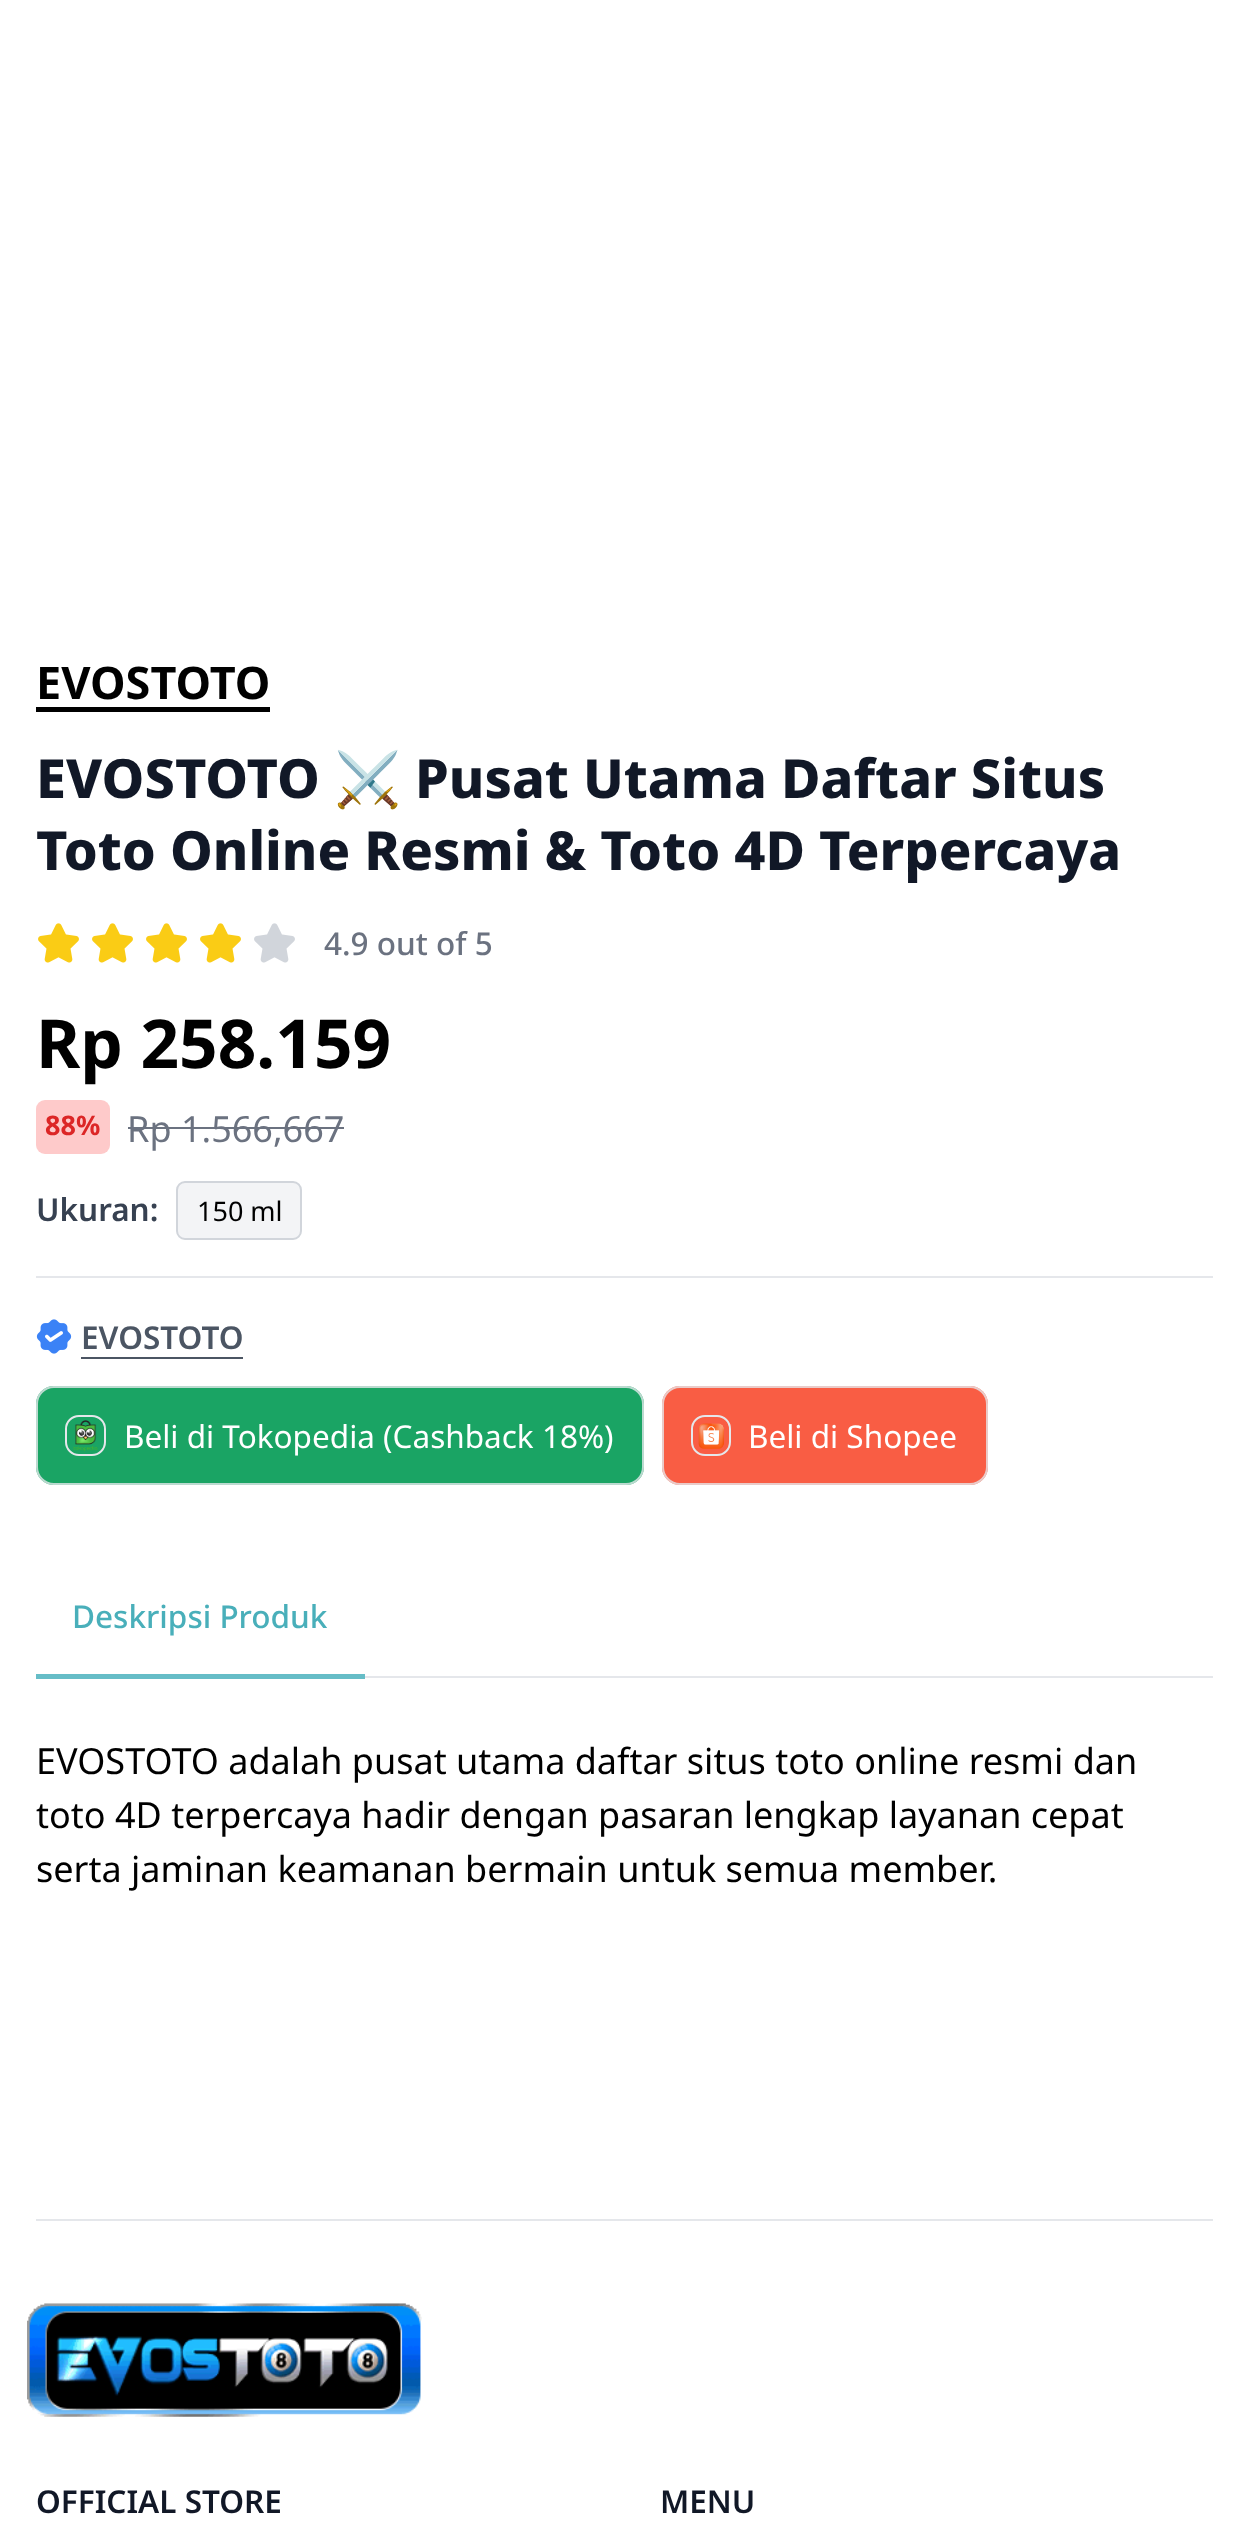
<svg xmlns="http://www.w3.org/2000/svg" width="1248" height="2533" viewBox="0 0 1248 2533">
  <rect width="100%" height="100%" fill="#ffffff"/>
  <text x="36" y="699" font-family="Noto Sans" font-size="45" font-weight="bold" fill="#000000">EVOSTOTO</text>
  <rect x="36" y="707" width="234" height="5" fill="#000000"/>
  <text x="36" y="798" font-family="Noto Sans" font-size="54" font-weight="800" fill="#111827">EVOSTOTO</text>
  <text x="334" y="798" font-family="Noto Color Emoji" font-size="54" font-weight="bold" fill="#111827">⚔️</text>
  <text x="415" y="798" font-family="Noto Sans" font-size="54" font-weight="800" fill="#111827">Pusat Utama Daftar Situs</text>
  <text x="36" y="870" font-family="Noto Sans" font-size="54" font-weight="800" fill="#111827">Toto Online Resmi &amp; Toto 4D Terpercaya</text>
  <image x="38" y="923" width="41" height="40" href="img1.png"/>
  <image x="92" y="923" width="41" height="40" href="img1.png"/>
  <image x="146" y="923" width="41" height="40" href="img1.png"/>
  <image x="200" y="923" width="41" height="40" href="img1.png"/>
  <image x="254" y="923" width="41" height="40" href="img2.png"/>
  <text x="324" y="955" font-family="Noto Sans" font-size="31.5" font-weight="500" fill="#6b7280">4.9 out of 5</text>
  <text x="36" y="1068" font-family="Noto Sans" font-size="67.5" font-weight="bold" fill="#000000">Rp 258.159</text>
  <rect x="36" y="1100" width="74" height="54" rx="9" fill="#fecaca"/>
  <text x="45" y="1135" font-family="Noto Sans" font-size="27" font-weight="bold" fill="#dc2626">88%</text>
  <text x="127" y="1142" font-family="Noto Sans" font-size="36" fill="#6b7280">Rp 1.566,667</text>
  <rect x="128" y="1127" width="216" height="2" fill="#6b7280"/>
  <text x="36" y="1221" font-family="Noto Sans" font-size="31.5" font-weight="600" fill="#374151">Ukuran:</text>
  <rect x="177" y="1182" width="124" height="57" rx="8" fill="#f3f4f6" stroke="#d1d5db" stroke-width="2"/>
  <text x="197" y="1221" font-family="Noto Sans" font-size="27" fill="#000000">150 ml</text>
  <rect x="36" y="1276" width="1177" height="2" fill="#e5e7eb"/>
  <image x="36" y="1319" width="36" height="35" href="img3.png"/>
  <text x="81" y="1349" font-family="Noto Sans" font-size="31.5" font-weight="600" fill="#4b5563">EVOSTOTO</text>
  <rect x="81" y="1357" width="162" height="2" fill="#4b5563"/>
  <rect x="36" y="1386" width="608" height="99" rx="18" fill="#1aa464"/>
  <rect x="37" y="1387" width="606" height="97" rx="17" fill="none" stroke="#e5e7eb" stroke-opacity="0.8" stroke-width="2"/>
  <rect x="66" y="1416" width="39" height="39" rx="13" fill="none" stroke="#e5e7eb" stroke-width="2"/>
  <image x="73" y="1420" width="25" height="32" href="img4.png"/>
  <text x="124" y="1448" font-family="Noto Sans" font-size="31.5" fill="#ffffff">Beli di Tokopedia (Cashback 18%)</text>
  <rect x="662" y="1386" width="326" height="99" rx="18" fill="#f95d44"/>
  <rect x="663" y="1387" width="324" height="97" rx="17" fill="none" stroke="#e5e7eb" stroke-opacity="0.8" stroke-width="2"/>
  <rect x="692" y="1416" width="38" height="39" rx="13" fill="none" stroke="#e5e7eb" stroke-width="2"/>
  <image x="698" y="1423" width="26" height="26" href="img5.png"/>
  <text x="748" y="1448" font-family="Noto Sans" font-size="31.5" fill="#ffffff">Beli di Shopee</text>
  <rect x="365" y="1676" width="848" height="2" fill="#e5e7eb"/>
  <rect x="36" y="1674" width="329" height="5" fill="#66bdc7"/>
  <text x="72" y="1628" font-family="Noto Sans" font-size="31.5" font-weight="500" fill="#49afba">Deskripsi Produk</text>
  <text x="36" y="1774" font-family="Noto Sans" font-size="36" fill="#000000">EVOSTOTO adalah pusat utama daftar situs toto online resmi dan</text>
  <text x="36" y="1828" font-family="Noto Sans" font-size="36" fill="#000000">toto 4D terpercaya hadir dengan pasaran lengkap layanan cepat</text>
  <text x="36" y="1882" font-family="Noto Sans" font-size="36" fill="#000000">serta jaminan keamanan bermain untuk semua member.</text>
  <rect x="36" y="2219" width="1177" height="2" fill="#e5e7eb"/>
  <image x="27" y="2303" width="395" height="114" href="img6.png"/>
  <text x="36" y="2513" font-family="Noto Sans" font-size="31.5" font-weight="600" fill="#111827">OFFICIAL STORE</text>
  <text x="660" y="2513" font-family="Noto Sans" font-size="31.5" font-weight="600" fill="#111827">MENU</text>
</svg>
